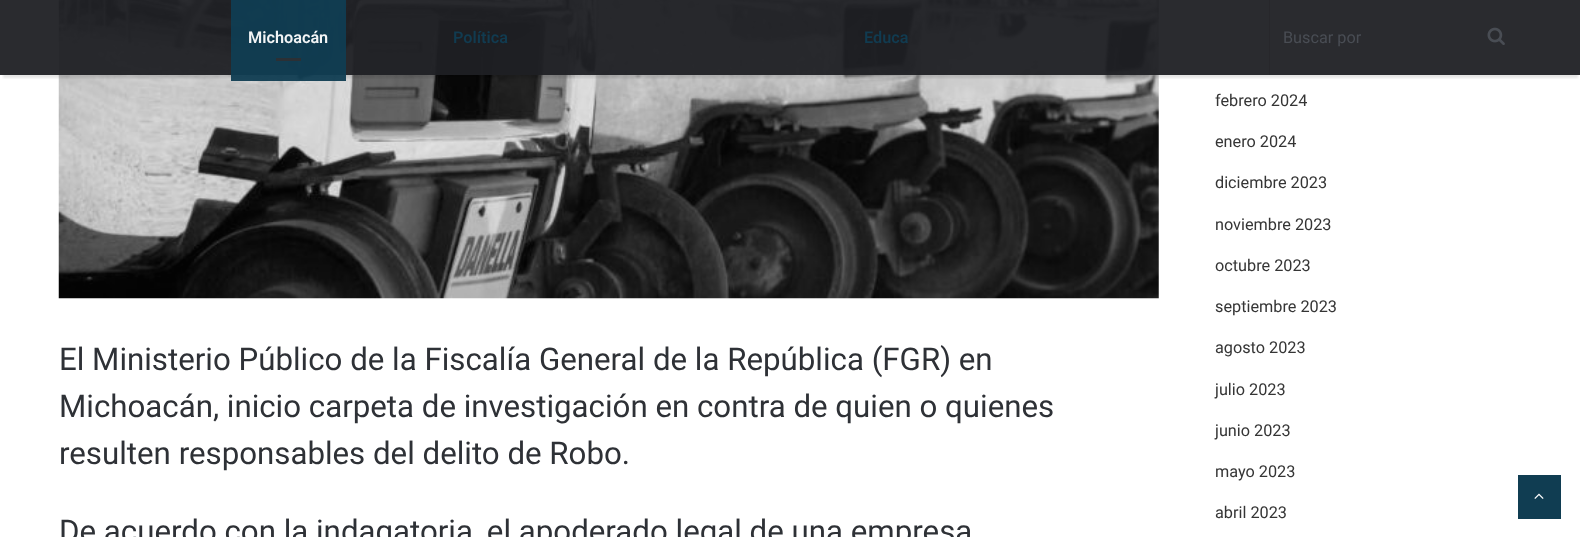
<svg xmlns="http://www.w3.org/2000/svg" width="1580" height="537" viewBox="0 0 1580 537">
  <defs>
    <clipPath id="clip1"><rect x="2" y="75" width="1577" height="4"/></clipPath>
    <filter id="blur1" x="-50%" y="-200%" width="200%" height="500%"><feGaussianBlur stdDeviation="1"/></filter>
  </defs>
  <rect width="100%" height="100%" fill="#ffffff"/>
  <image x="58" y="0" width="1101" height="299" href="img2.png"/>
  <g clip-path="url(#clip1)">
    <rect x="3" y="8" width="1575" height="70" fill="#000000" fill-opacity="0.1" filter="url(#blur1)"/>
  </g>
  <rect x="0" y="0" width="1580" height="75" fill="#1f2024" fill-opacity="0.95"/>
  <rect x="231" y="75" width="115" height="6" fill="#103d52" fill-opacity="0.95"/>
  <rect x="231" y="0" width="115" height="75" fill="#103d52" fill-opacity="0.95"/>
  <text x="248" y="43" font-family="Roboto" font-size="16.25" font-weight="600" fill="#f3f5f6">Michoacán</text>
  <rect x="276" y="58" width="25" height="3" fill="#2b3035"/>
  <text x="453" y="43" font-family="Roboto" font-size="16.25" font-weight="600" fill="#113b50">Política</text>
  <text x="864" y="43" font-family="Roboto" font-size="16.25" font-weight="600" fill="#113b50">Educa</text>
  <rect x="1269" y="0" width="1" height="75" fill="#000000" fill-opacity="0.07"/>
  <text x="1283" y="43" font-family="Roboto" font-size="16.25" fill="#494d54">Buscar por</text>
  <image x="1487" y="27" width="18" height="18" href="img1.png"/>
  <text x="59" y="370" font-family="Roboto" font-size="31.25" fill="#2e3136">El Ministerio Público de la Fiscalía General de la República (FGR) en</text>
  <text x="59" y="417" font-family="Roboto" font-size="31.25" fill="#2e3136">Michoacán, inicio carpeta de investigación en contra de quien o quienes</text>
  <text x="59" y="464" font-family="Roboto" font-size="31.25" fill="#2e3136">resulten responsables del delito de Robo.</text>
  <text x="59" y="542" font-family="Roboto" font-size="31.25" fill="#2e3136">De acuerdo con la indagatoria, el apoderado legal de una empresa</text>
  <text x="1215" y="106" font-family="Roboto" font-size="16.25" fill="#353535">febrero 2024</text>
  <text x="1215" y="147" font-family="Roboto" font-size="16.25" fill="#353535">enero 2024</text>
  <text x="1215" y="188" font-family="Roboto" font-size="16.25" fill="#353535">diciembre 2023</text>
  <text x="1215" y="230" font-family="Roboto" font-size="16.25" fill="#353535">noviembre 2023</text>
  <text x="1215" y="271" font-family="Roboto" font-size="16.25" fill="#353535">octubre 2023</text>
  <text x="1215" y="312" font-family="Roboto" font-size="16.25" fill="#353535">septiembre 2023</text>
  <text x="1215" y="353" font-family="Roboto" font-size="16.25" fill="#353535">agosto 2023</text>
  <text x="1215" y="395" font-family="Roboto" font-size="16.25" fill="#353535">julio 2023</text>
  <text x="1215" y="436" font-family="Roboto" font-size="16.25" fill="#353535">junio 2023</text>
  <text x="1215" y="477" font-family="Roboto" font-size="16.25" fill="#353535">mayo 2023</text>
  <text x="1215" y="518" font-family="Roboto" font-size="16.25" fill="#353535">abril 2023</text>
  <rect x="1518" y="475" width="43" height="44" fill="#103d52"/>
  <image x="1534" y="493" width="10" height="6" href="img3.png"/>
</svg>
